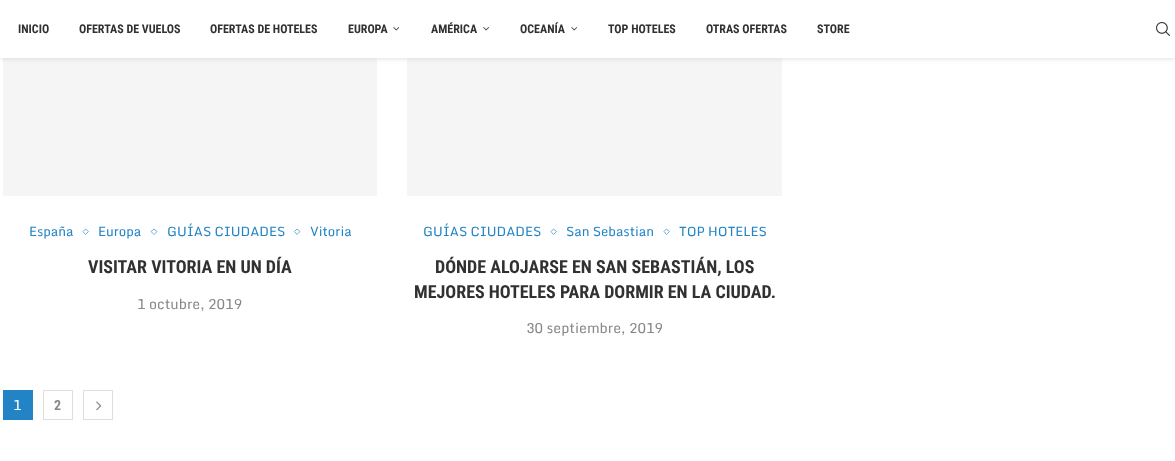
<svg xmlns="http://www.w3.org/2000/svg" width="1175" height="461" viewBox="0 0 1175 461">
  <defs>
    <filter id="blur1" x="-50%" y="-200%" width="200%" height="500%"><feGaussianBlur stdDeviation="2.5"/></filter>
  </defs>
  <rect width="100%" height="100%" fill="#ffffff"/>
  <rect x="3" y="58" width="374" height="138" fill="#f5f5f5"/>
  <rect x="407" y="58" width="375" height="138" fill="#f5f5f5"/>
  <rect x="0" y="1" width="1175" height="58" fill="#bebebe" fill-opacity="0.46" filter="url(#blur1)"/>
  <rect x="0" y="0" width="1175" height="58" fill="#ffffff"/>
  <text x="18" y="33" font-family="Roboto Condensed" font-size="12" font-weight="bold" fill="#313131">INICIO</text>
  <text x="79" y="33" font-family="Roboto Condensed" font-size="12" font-weight="bold" fill="#313131">OFERTAS DE VUELOS</text>
  <text x="210" y="33" font-family="Roboto Condensed" font-size="12" font-weight="bold" fill="#313131">OFERTAS DE HOTELES</text>
  <text x="348" y="33" font-family="Roboto Condensed" font-size="12" font-weight="bold" fill="#313131">EUROPA</text>
  <image x="393" y="27" width="7" height="4" href="img1.png"/>
  <text x="431" y="33" font-family="Roboto Condensed" font-size="12" font-weight="bold" fill="#313131">AMÉRICA</text>
  <image x="483" y="27" width="6" height="4" href="img2.png"/>
  <text x="520" y="33" font-family="Roboto Condensed" font-size="12" font-weight="bold" fill="#313131">OCEANÍA</text>
  <image x="571" y="27" width="6" height="4" href="img3.png"/>
  <text x="608" y="33" font-family="Roboto Condensed" font-size="12" font-weight="bold" fill="#313131">TOP HOTELES</text>
  <text x="706" y="33" font-family="Roboto Condensed" font-size="12" font-weight="bold" fill="#313131">OTRAS OFERTAS</text>
  <text x="817" y="33" font-family="Roboto Condensed" font-size="12" font-weight="bold" fill="#313131">STORE</text>
  <image x="1156" y="22" width="14" height="14" href="img4.png"/>
  <text x="29" y="236" font-family="Monda" font-size="13" fill="#2384c5">España</text>
  <path d="M85.5 229L88.5 231.5L85.5 234.5L83 231.5Z" fill="none" stroke="#70afd9"/>
  <text x="98" y="236" font-family="Monda" font-size="13" fill="#2384c5">Europa</text>
  <path d="M154 229L157 231.5L154 234.5L151 231.5Z" fill="none" stroke="#70afd9"/>
  <text x="167" y="236" font-family="Monda" font-size="13" fill="#2384c5">GUÍAS CIUDADES</text>
  <path d="M297 229L300 231.5L297 234.5L294.5 231.5Z" fill="none" stroke="#70afd9"/>
  <text x="310" y="236" font-family="Monda" font-size="13" fill="#2384c5">Vitoria</text>
  <text x="88" y="273" font-family="Roboto Condensed" font-size="18" font-weight="bold" fill="#313131">VISITAR VITORIA EN UN DÍA</text>
  <text x="137" y="309" font-family="Monda" font-size="14" fill="#888888">1 octubre, 2019</text>
  <text x="423" y="236" font-family="Monda" font-size="13" fill="#2384c5">GUÍAS CIUDADES</text>
  <path d="M553.5 229L556.5 231.5L553.5 234.5L551 231.5Z" fill="none" stroke="#70afd9"/>
  <text x="566" y="236" font-family="Monda" font-size="13" fill="#2384c5">San Sebastian</text>
  <path d="M666.5 229L669.5 231.5L666.5 234.5L664 231.5Z" fill="none" stroke="#70afd9"/>
  <text x="679" y="236" font-family="Monda" font-size="13" fill="#2384c5">TOP HOTELES</text>
  <text x="435" y="273" font-family="Roboto Condensed" font-size="18" font-weight="bold" fill="#313131">DÓNDE ALOJARSE EN SAN SEBASTIÁN, LOS</text>
  <text x="414" y="298" font-family="Roboto Condensed" font-size="18" font-weight="bold" fill="#313131">MEJORES HOTELES PARA DORMIR EN LA CIUDAD.</text>
  <text x="526" y="333" font-family="Monda" font-size="14" fill="#888888">30 septiembre, 2019</text>
  <rect x="3" y="390" width="30" height="30" fill="#2384c5"/>
  <text x="13" y="410" font-family="Monda" font-size="14" fill="#ffffff">1</text>
  <rect x="43.5" y="390.5" width="29" height="29" fill="none" stroke="#dedede"/>
  <text x="54" y="410" font-family="Roboto Condensed" font-size="14" font-weight="bold" fill="#888888">2</text>
  <rect x="83.5" y="390.5" width="29" height="29" fill="none" stroke="#dedede"/>
  <image x="96" y="401" width="6" height="10" href="img5.png"/>
</svg>
